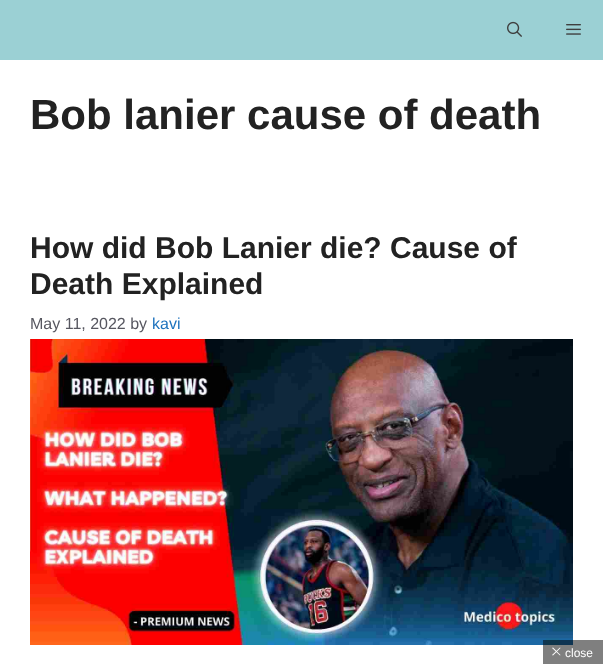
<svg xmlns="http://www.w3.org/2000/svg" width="603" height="664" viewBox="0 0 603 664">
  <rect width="100%" height="100%" fill="#9bd0d4"/>
  <image x="507" y="21" width="15" height="16" href="img1.png"/>
  <image x="566" y="24" width="15" height="11" href="img2.png"/>
  <rect x="0" y="60" width="603" height="604" fill="#ffffff"/>
  <text x="30" y="129" font-family="Liberation Sans" font-size="42" font-weight="bold" fill="#222222">Bob lanier cause of death</text>
  <text x="30" y="258" font-family="Liberation Sans" font-size="30" font-weight="bold" fill="#222222">How did Bob Lanier die? Cause of</text>
  <text x="30" y="294" font-family="Liberation Sans" font-size="30" font-weight="bold" fill="#222222">Death Explained</text>
  <text x="30" y="329" font-family="Liberation Sans" font-size="16" fill="#575760">May 11, 2022 by</text>
  <text x="152" y="329" font-family="Liberation Sans" font-size="16" fill="#1e73be">kavi</text>
  <image x="30" y="339" width="543" height="306" href="img3.png"/>
  <rect x="543" y="640" width="60" height="24" fill="#000000" fill-opacity="0.5"/>
  <path d="M553 647.5L560.5 655L560 655.5L552 648Z" fill="#ffffff"/>
  <path d="M560 647.5L560.5 648L553 655.5L552 655Z" fill="#ffffff"/>
  <text x="565" y="657" font-family="Liberation Sans" font-size="12" fill="#ffffff">close</text>
</svg>
